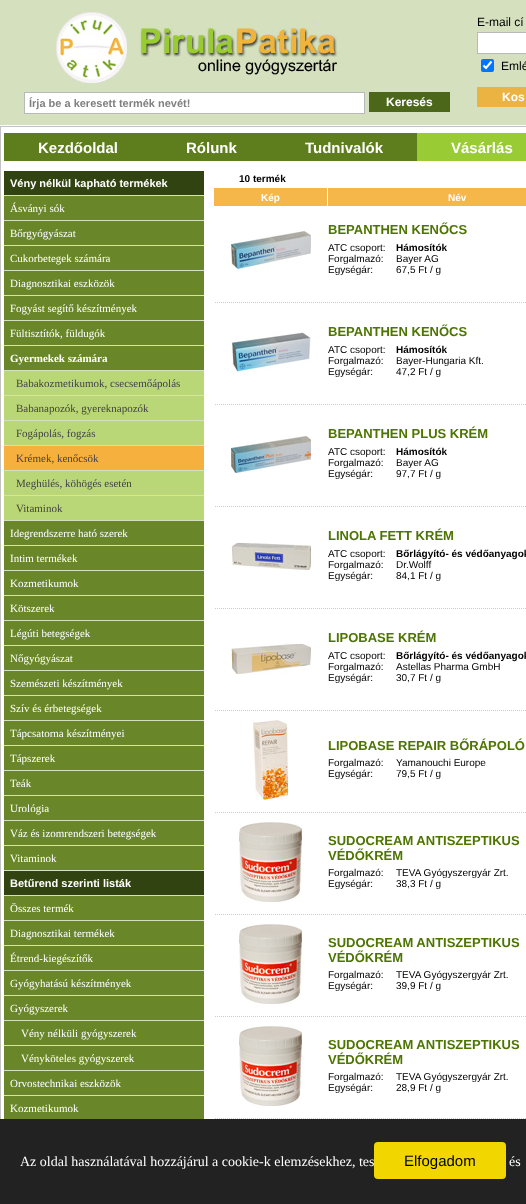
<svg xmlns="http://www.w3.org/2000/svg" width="526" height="1204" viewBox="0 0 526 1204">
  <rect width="100%" height="100%" fill="#d5e0be"/>
  <image x="56" y="12" width="287" height="71" href="img1.png"/>
  <rect x="24.5" y="92.5" width="340" height="21" fill="#ffffff" stroke="#b8b9bb"/>
  <text x="29" y="107" font-family="Liberation Sans" font-size="11" font-weight="bold" fill="#808080">Írja be a keresett termék nevét!</text>
  <rect x="369" y="92" width="81" height="20" fill="#4c671a"/>
  <text x="386" y="106" font-family="Liberation Sans" font-size="12" font-weight="bold" fill="#ffffff">Keresés</text>
  <text x="477" y="26" font-family="Liberation Sans" font-size="12" fill="#000000">E-mail cí</text>
  <rect x="477.5" y="32.5" width="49" height="21" fill="#ffffff" stroke="#b8b9bb"/>
  <rect x="481" y="59" width="13" height="13" rx="2" fill="#0075ff"/>
  <path d="M483.5 65.5L486 68L491.5 61.5" fill="none" stroke="#ffffff" stroke-width="2.1"/>
  <text x="501" y="70" font-family="Liberation Sans" font-size="12" fill="#000000">Emlé</text>
  <rect x="477" y="87" width="49" height="20" fill="#ebb342"/>
  <text x="502" y="101" font-family="Liberation Sans" font-size="12" font-weight="bold" fill="#ffffff">Kos</text>
  <rect x="0" y="125" width="526" height="1" fill="#ffffff"/>
  <rect x="1" y="127" width="525" height="992" fill="#ffffff"/>
  <rect x="0.5" y="126.5" width="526" height="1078" fill="none" stroke="#c2c2c2"/>
  <rect x="4" y="133" width="413" height="28" fill="#5e7e1d"/>
  <text x="38" y="153" font-family="Liberation Sans" font-size="15" font-weight="bold" fill="#ffffff">Kezdőoldal</text>
  <text x="186" y="153" font-family="Liberation Sans" font-size="15" font-weight="bold" fill="#ffffff">Rólunk</text>
  <text x="305" y="153" font-family="Liberation Sans" font-size="15" font-weight="bold" fill="#ffffff">Tudnivalók</text>
  <rect x="417" y="133" width="109" height="28" fill="#99cb34"/>
  <text x="451" y="153" font-family="Liberation Sans" font-size="15" font-weight="bold" fill="#ffffff">Vásárlás</text>
  <rect x="4" y="195" width="200" height="901" fill="#d5e0be"/>
  <rect x="4" y="171" width="200" height="24" fill="#314310"/>
  <text x="10" y="187" font-family="Liberation Sans" font-size="11" font-weight="bold" fill="#ffffff">Vény nélkül kapható termékek</text>
  <rect x="4" y="196" width="200" height="24" fill="#698629"/>
  <text x="10" y="212" font-family="Liberation Serif" font-size="11" fill="#ffffff">Ásványi sók</text>
  <rect x="4" y="221" width="200" height="24" fill="#698629"/>
  <text x="10" y="237" font-family="Liberation Serif" font-size="11" fill="#ffffff">Bőrgyógyászat</text>
  <rect x="4" y="246" width="200" height="24" fill="#698629"/>
  <text x="10" y="262" font-family="Liberation Serif" font-size="11" fill="#ffffff">Cukorbetegek számára</text>
  <rect x="4" y="271" width="200" height="24" fill="#698629"/>
  <text x="10" y="287" font-family="Liberation Serif" font-size="11" fill="#ffffff">Diagnosztikai eszközök</text>
  <rect x="4" y="296" width="200" height="24" fill="#698629"/>
  <text x="10" y="312" font-family="Liberation Serif" font-size="11" fill="#ffffff">Fogyást segítő készítmények</text>
  <rect x="4" y="321" width="200" height="24" fill="#698629"/>
  <text x="10" y="337" font-family="Liberation Serif" font-size="11" fill="#ffffff">Fültisztítók, füldugók</text>
  <rect x="4" y="346" width="200" height="24" fill="#698629"/>
  <text x="10" y="362" font-family="Liberation Serif" font-size="11" font-weight="bold" fill="#ffffff">Gyermekek számára</text>
  <rect x="4" y="371" width="200" height="24" fill="#bad777"/>
  <text x="16" y="387" font-family="Liberation Serif" font-size="11" fill="#444444">Babakozmetikumok, csecsemőápolás</text>
  <rect x="4" y="396" width="200" height="24" fill="#bad777"/>
  <text x="16" y="412" font-family="Liberation Serif" font-size="11" fill="#444444">Babanapozók, gyereknapozók</text>
  <rect x="4" y="421" width="200" height="24" fill="#bad777"/>
  <text x="16" y="437" font-family="Liberation Serif" font-size="11" fill="#444444">Fogápolás, fogzás</text>
  <rect x="4" y="446" width="200" height="24" fill="#f6b03e"/>
  <text x="16" y="462" font-family="Liberation Serif" font-size="11" fill="#444444">Krémek, kenőcsök</text>
  <rect x="4" y="471" width="200" height="24" fill="#bad777"/>
  <text x="16" y="487" font-family="Liberation Serif" font-size="11" fill="#444444">Meghülés, köhögés esetén</text>
  <rect x="4" y="496" width="200" height="24" fill="#bad777"/>
  <text x="16" y="512" font-family="Liberation Serif" font-size="11" fill="#444444">Vitaminok</text>
  <rect x="4" y="521" width="200" height="24" fill="#698629"/>
  <text x="10" y="537" font-family="Liberation Serif" font-size="11" fill="#ffffff">Idegrendszerre ható szerek</text>
  <rect x="4" y="546" width="200" height="24" fill="#698629"/>
  <text x="10" y="562" font-family="Liberation Serif" font-size="11" fill="#ffffff">Intim termékek</text>
  <rect x="4" y="571" width="200" height="24" fill="#698629"/>
  <text x="10" y="587" font-family="Liberation Serif" font-size="11" fill="#ffffff">Kozmetikumok</text>
  <rect x="4" y="596" width="200" height="24" fill="#698629"/>
  <text x="10" y="612" font-family="Liberation Serif" font-size="11" fill="#ffffff">Kötszerek</text>
  <rect x="4" y="621" width="200" height="24" fill="#698629"/>
  <text x="10" y="637" font-family="Liberation Serif" font-size="11" fill="#ffffff">Légúti betegségek</text>
  <rect x="4" y="646" width="200" height="24" fill="#698629"/>
  <text x="10" y="662" font-family="Liberation Serif" font-size="11" fill="#ffffff">Nőgyógyászat</text>
  <rect x="4" y="671" width="200" height="24" fill="#698629"/>
  <text x="10" y="687" font-family="Liberation Serif" font-size="11" fill="#ffffff">Szemészeti készítmények</text>
  <rect x="4" y="696" width="200" height="24" fill="#698629"/>
  <text x="10" y="712" font-family="Liberation Serif" font-size="11" fill="#ffffff">Szív és érbetegségek</text>
  <rect x="4" y="721" width="200" height="24" fill="#698629"/>
  <text x="10" y="737" font-family="Liberation Serif" font-size="11" fill="#ffffff">Tápcsatorna készítményei</text>
  <rect x="4" y="746" width="200" height="24" fill="#698629"/>
  <text x="10" y="762" font-family="Liberation Serif" font-size="11" fill="#ffffff">Tápszerek</text>
  <rect x="4" y="771" width="200" height="24" fill="#698629"/>
  <text x="10" y="787" font-family="Liberation Serif" font-size="11" fill="#ffffff">Teák</text>
  <rect x="4" y="796" width="200" height="24" fill="#698629"/>
  <text x="10" y="812" font-family="Liberation Serif" font-size="11" fill="#ffffff">Urológia</text>
  <rect x="4" y="821" width="200" height="24" fill="#698629"/>
  <text x="10" y="837" font-family="Liberation Serif" font-size="11" fill="#ffffff">Váz és izomrendszeri betegségek</text>
  <rect x="4" y="846" width="200" height="24" fill="#698629"/>
  <text x="10" y="862" font-family="Liberation Serif" font-size="11" fill="#ffffff">Vitaminok</text>
  <rect x="4" y="871" width="200" height="24" fill="#314310"/>
  <text x="10" y="887" font-family="Liberation Sans" font-size="11" font-weight="bold" fill="#ffffff">Betűrend szerinti listák</text>
  <rect x="4" y="896" width="200" height="24" fill="#698629"/>
  <text x="10" y="912" font-family="Liberation Serif" font-size="11" fill="#ffffff">Összes termék</text>
  <rect x="4" y="921" width="200" height="24" fill="#698629"/>
  <text x="10" y="937" font-family="Liberation Serif" font-size="11" fill="#ffffff">Diagnosztikai termékek</text>
  <rect x="4" y="946" width="200" height="24" fill="#698629"/>
  <text x="10" y="962" font-family="Liberation Serif" font-size="11" fill="#ffffff">Étrend-kiegészítők</text>
  <rect x="4" y="971" width="200" height="24" fill="#698629"/>
  <text x="10" y="987" font-family="Liberation Serif" font-size="11" fill="#ffffff">Gyógyhatású készítmények</text>
  <rect x="4" y="996" width="200" height="24" fill="#698629"/>
  <text x="10" y="1012" font-family="Liberation Serif" font-size="11" fill="#ffffff">Gyógyszerek</text>
  <rect x="4" y="1021" width="200" height="24" fill="#698629"/>
  <text x="21" y="1037" font-family="Liberation Serif" font-size="11" fill="#ffffff">Vény nélküli gyógyszerek</text>
  <rect x="4" y="1046" width="200" height="24" fill="#698629"/>
  <text x="21" y="1062" font-family="Liberation Serif" font-size="11" fill="#ffffff">Vényköteles gyógyszerek</text>
  <rect x="4" y="1071" width="200" height="24" fill="#698629"/>
  <text x="10" y="1087" font-family="Liberation Serif" font-size="11" fill="#ffffff">Orvostechnikai eszközök</text>
  <rect x="4" y="1096" width="200" height="23" fill="#698629"/>
  <text x="10" y="1112" font-family="Liberation Serif" font-size="11" fill="#ffffff">Kozmetikumok</text>
  <text x="239" y="182" font-family="Liberation Sans" font-size="10" font-weight="bold" fill="#000000">10 termék</text>
  <rect x="214" y="188" width="113" height="18" fill="#f5b74a"/>
  <text x="261" y="201" font-family="Liberation Sans" font-size="10" font-weight="bold" fill="#ffffff">Kép</text>
  <rect x="328" y="188" width="198" height="18" fill="#f5b74a"/>
  <text x="448" y="201" font-family="Liberation Sans" font-size="10" font-weight="bold" fill="#ffffff">Név</text>
  <image x="231" y="231" width="80" height="38" href="img2.png"/>
  <text x="328" y="234" font-family="Liberation Sans" font-size="13" font-weight="bold" fill="#4d7500">BEPANTHEN KENŐCS</text>
  <text x="328" y="251" font-family="Liberation Sans" font-size="10" fill="#000000">ATC csoport:</text>
  <text x="396" y="251" font-family="Liberation Sans" font-size="10" font-weight="bold" fill="#000000">Hámosítók</text>
  <text x="328" y="262" font-family="Liberation Sans" font-size="10" fill="#000000">Forgalmazó:</text>
  <text x="328" y="273" font-family="Liberation Sans" font-size="10" fill="#000000">Egységár:</text>
  <text x="396" y="262" font-family="Liberation Sans" font-size="10" fill="#000000">Bayer AG</text>
  <text x="396" y="273" font-family="Liberation Sans" font-size="10" fill="#000000">67,5 Ft / g</text>
  <path d="M215 302.5H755" fill="none" stroke="#cccccc" stroke-dasharray="1 1"/>
  <image x="231" y="332" width="80" height="42" href="img3.png"/>
  <text x="328" y="336" font-family="Liberation Sans" font-size="13" font-weight="bold" fill="#4d7500">BEPANTHEN KENŐCS</text>
  <text x="328" y="353" font-family="Liberation Sans" font-size="10" fill="#000000">ATC csoport:</text>
  <text x="396" y="353" font-family="Liberation Sans" font-size="10" font-weight="bold" fill="#000000">Hámosítók</text>
  <text x="328" y="364" font-family="Liberation Sans" font-size="10" fill="#000000">Forgalmazó:</text>
  <text x="328" y="375" font-family="Liberation Sans" font-size="10" fill="#000000">Egységár:</text>
  <text x="396" y="364" font-family="Liberation Sans" font-size="10" fill="#000000">Bayer-Hungaria Kft.</text>
  <text x="396" y="375" font-family="Liberation Sans" font-size="10" fill="#000000">47,2 Ft / g</text>
  <path d="M215 404.5H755" fill="none" stroke="#cccccc" stroke-dasharray="1 1"/>
  <image x="231" y="436" width="80" height="37" href="img4.png"/>
  <text x="328" y="438" font-family="Liberation Sans" font-size="13" font-weight="bold" fill="#4d7500">BEPANTHEN PLUS KRÉM</text>
  <text x="328" y="455" font-family="Liberation Sans" font-size="10" fill="#000000">ATC csoport:</text>
  <text x="396" y="455" font-family="Liberation Sans" font-size="10" font-weight="bold" fill="#000000">Hámosítók</text>
  <text x="328" y="466" font-family="Liberation Sans" font-size="10" fill="#000000">Forgalmazó:</text>
  <text x="328" y="477" font-family="Liberation Sans" font-size="10" fill="#000000">Egységár:</text>
  <text x="396" y="466" font-family="Liberation Sans" font-size="10" fill="#000000">Bayer AG</text>
  <text x="396" y="477" font-family="Liberation Sans" font-size="10" fill="#000000">97,7 Ft / g</text>
  <path d="M215 506.5H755" fill="none" stroke="#cccccc" stroke-dasharray="1 1"/>
  <image x="231" y="542" width="80" height="28" href="img5.png"/>
  <text x="328" y="540" font-family="Liberation Sans" font-size="13" font-weight="bold" fill="#4d7500">LINOLA FETT KRÉM</text>
  <text x="328" y="557" font-family="Liberation Sans" font-size="10" fill="#000000">ATC csoport:</text>
  <text x="396" y="557" font-family="Liberation Sans" font-size="10" font-weight="bold" fill="#000000">Bőrlágyító- és védőanyagok</text>
  <text x="328" y="568" font-family="Liberation Sans" font-size="10" fill="#000000">Forgalmazó:</text>
  <text x="328" y="579" font-family="Liberation Sans" font-size="10" fill="#000000">Egységár:</text>
  <text x="396" y="568" font-family="Liberation Sans" font-size="10" fill="#000000">Dr.Wolff</text>
  <text x="396" y="579" font-family="Liberation Sans" font-size="10" fill="#000000">84,1 Ft / g</text>
  <path d="M215 608.5H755" fill="none" stroke="#cccccc" stroke-dasharray="1 1"/>
  <image x="231" y="643" width="80" height="31" href="img6.png"/>
  <text x="328" y="642" font-family="Liberation Sans" font-size="13" font-weight="bold" fill="#4d7500">LIPOBASE KRÉM</text>
  <text x="328" y="659" font-family="Liberation Sans" font-size="10" fill="#000000">ATC csoport:</text>
  <text x="396" y="659" font-family="Liberation Sans" font-size="10" font-weight="bold" fill="#000000">Bőrlágyító- és védőanyagok</text>
  <text x="328" y="670" font-family="Liberation Sans" font-size="10" fill="#000000">Forgalmazó:</text>
  <text x="328" y="681" font-family="Liberation Sans" font-size="10" fill="#000000">Egységár:</text>
  <text x="396" y="670" font-family="Liberation Sans" font-size="10" fill="#000000">Astellas Pharma GmbH</text>
  <text x="396" y="681" font-family="Liberation Sans" font-size="10" fill="#000000">30,7 Ft / g</text>
  <path d="M215 710.5H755" fill="none" stroke="#cccccc" stroke-dasharray="1 1"/>
  <image x="253" y="720" width="35" height="80" href="img7.png"/>
  <text x="328" y="750" font-family="Liberation Sans" font-size="13" font-weight="bold" fill="#4d7500">LIPOBASE REPAIR BŐRÁPOLÓ</text>
  <text x="328" y="766" font-family="Liberation Sans" font-size="10" fill="#000000">Forgalmazó:</text>
  <text x="328" y="777" font-family="Liberation Sans" font-size="10" fill="#000000">Egységár:</text>
  <text x="396" y="766" font-family="Liberation Sans" font-size="10" fill="#000000">Yamanouchi Europe</text>
  <text x="396" y="777" font-family="Liberation Sans" font-size="10" fill="#000000">79,5 Ft / g</text>
  <path d="M215 812.5H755" fill="none" stroke="#cccccc" stroke-dasharray="1 1"/>
  <image x="239" y="822" width="63" height="80" href="img8.png"/>
  <text x="328" y="845" font-family="Liberation Sans" font-size="13" font-weight="bold" fill="#4d7500">SUDOCREAM ANTISZEPTIKUS</text>
  <text x="328" y="860" font-family="Liberation Sans" font-size="13" font-weight="bold" fill="#4d7500">VÉDŐKRÉM</text>
  <text x="328" y="876" font-family="Liberation Sans" font-size="10" fill="#000000">Forgalmazó:</text>
  <text x="328" y="887" font-family="Liberation Sans" font-size="10" fill="#000000">Egységár:</text>
  <text x="396" y="876" font-family="Liberation Sans" font-size="10" fill="#000000">TEVA Gyógyszergyár Zrt.</text>
  <text x="396" y="887" font-family="Liberation Sans" font-size="10" fill="#000000">38,3 Ft / g</text>
  <path d="M215 914.5H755" fill="none" stroke="#cccccc" stroke-dasharray="1 1"/>
  <image x="239" y="924" width="63" height="80" href="img8.png"/>
  <text x="328" y="947" font-family="Liberation Sans" font-size="13" font-weight="bold" fill="#4d7500">SUDOCREAM ANTISZEPTIKUS</text>
  <text x="328" y="962" font-family="Liberation Sans" font-size="13" font-weight="bold" fill="#4d7500">VÉDŐKRÉM</text>
  <text x="328" y="978" font-family="Liberation Sans" font-size="10" fill="#000000">Forgalmazó:</text>
  <text x="328" y="989" font-family="Liberation Sans" font-size="10" fill="#000000">Egységár:</text>
  <text x="396" y="978" font-family="Liberation Sans" font-size="10" fill="#000000">TEVA Gyógyszergyár Zrt.</text>
  <text x="396" y="989" font-family="Liberation Sans" font-size="10" fill="#000000">39,9 Ft / g</text>
  <path d="M215 1016.5H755" fill="none" stroke="#cccccc" stroke-dasharray="1 1"/>
  <image x="239" y="1026" width="63" height="80" href="img8.png"/>
  <text x="328" y="1049" font-family="Liberation Sans" font-size="13" font-weight="bold" fill="#4d7500">SUDOCREAM ANTISZEPTIKUS</text>
  <text x="328" y="1064" font-family="Liberation Sans" font-size="13" font-weight="bold" fill="#4d7500">VÉDŐKRÉM</text>
  <text x="328" y="1080" font-family="Liberation Sans" font-size="10" fill="#000000">Forgalmazó:</text>
  <text x="328" y="1091" font-family="Liberation Sans" font-size="10" fill="#000000">Egységár:</text>
  <text x="396" y="1080" font-family="Liberation Sans" font-size="10" fill="#000000">TEVA Gyógyszergyár Zrt.</text>
  <text x="396" y="1091" font-family="Liberation Sans" font-size="10" fill="#000000">28,9 Ft / g</text>
  <path d="M215 1118.5H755" fill="none" stroke="#cccccc" stroke-dasharray="1 1"/>
  <rect x="0" y="1119" width="526" height="85" fill="#222222"/>
  <rect x="374" y="1142" width="132" height="37" rx="4" fill="#f1d600"/>
  <text x="404" y="1166" font-family="Liberation Sans" font-size="15" fill="#000000">Elfogadom</text>
  <text x="20" y="1166" font-family="Liberation Serif" font-size="14" fill="#ffffff">Az oldal használatával hozzájárul a cookie-k elemzésekhez, tes</text>
  <text x="509" y="1166" font-family="Liberation Serif" font-size="14" fill="#ffffff">és</text>
</svg>
